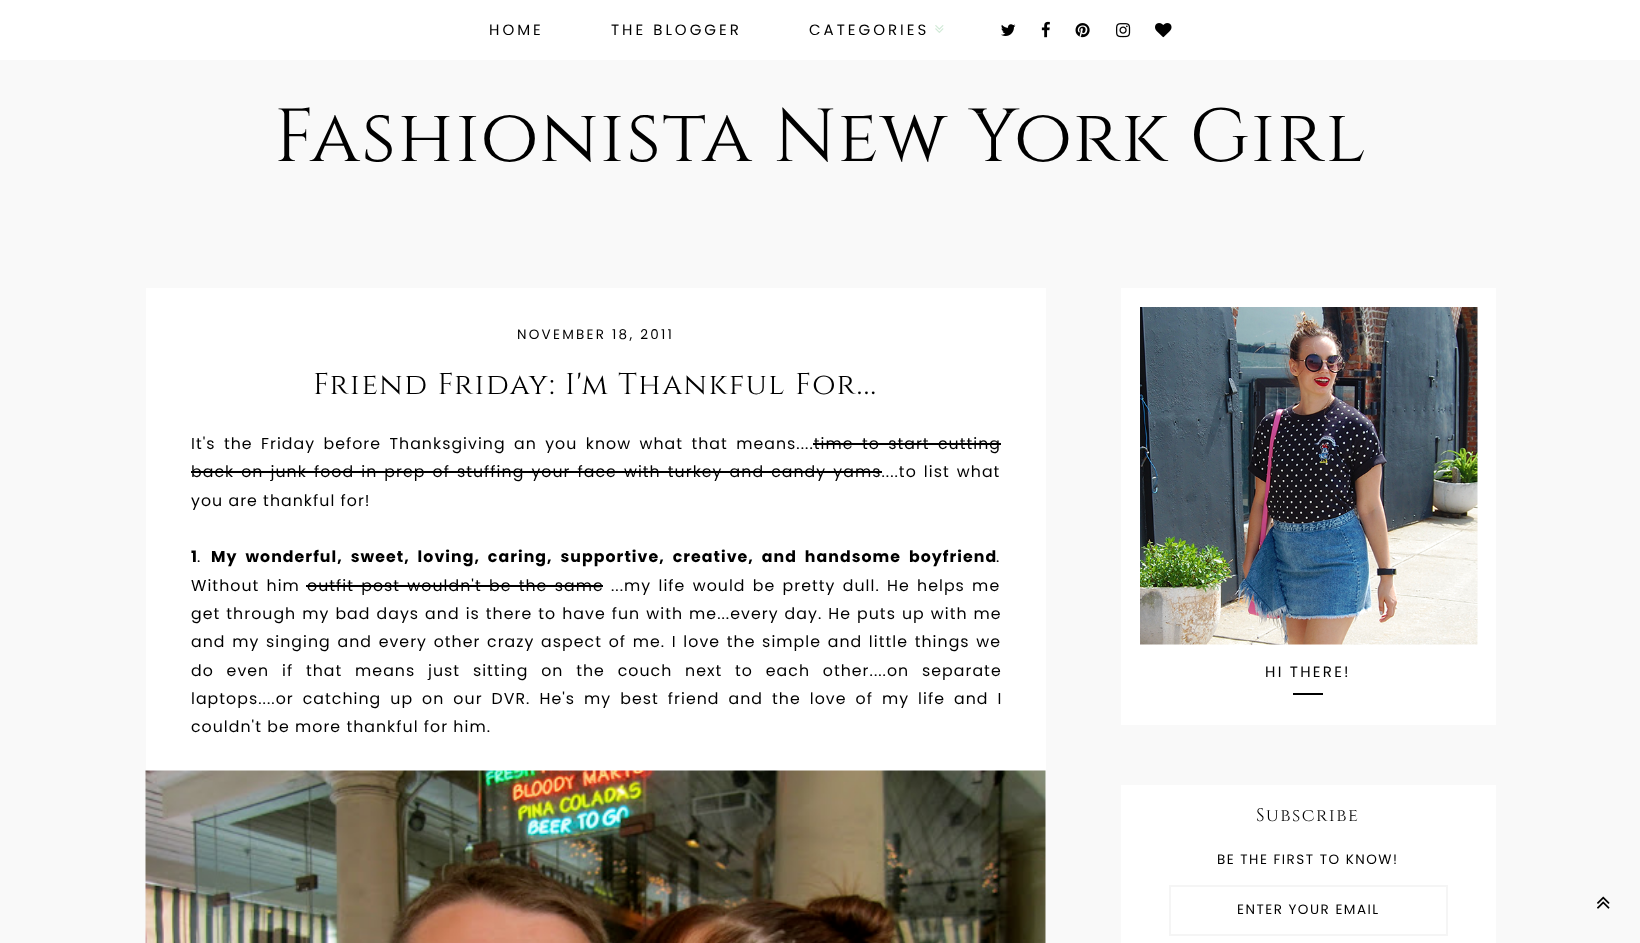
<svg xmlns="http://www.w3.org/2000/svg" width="1640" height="943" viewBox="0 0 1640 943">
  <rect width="100%" height="100%" fill="#f9f9f9"/>
  <rect x="0" y="0" width="1640" height="60" fill="#ffffff"/>
  <text x="489" y="35" font-family="Poppins" font-size="15" letter-spacing="3" fill="#000000">HOME</text>
  <text x="611" y="35" font-family="Poppins" font-size="15" letter-spacing="3" fill="#000000">THE BLOGGER</text>
  <text x="809" y="35" font-family="Poppins" font-size="15" letter-spacing="3" fill="#000000">CATEGORIES</text>
  <image x="935" y="25" width="9" height="8" href="img1.png"/>
  <image x="1001" y="24" width="15" height="12" href="img2.png"/>
  <image x="1041" y="21" width="9" height="17" href="img3.png"/>
  <image x="1075" y="23" width="15" height="15" href="img4.png"/>
  <image x="1116" y="23" width="15" height="15" href="img5.png"/>
  <image x="1155" y="23" width="17" height="15" href="img6.png"/>
  <text x="274" y="161" font-family="Cinzel" font-size="75" letter-spacing="1.5" fill="#000000">Fashionista New York Girl</text>
  <rect x="146" y="288" width="900" height="655" fill="#ffffff"/>
  <text x="517" y="339" font-family="Poppins" font-size="13.5" letter-spacing="2.25" fill="#000000">NOVEMBER 18, 2011</text>
  <text x="313" y="394" font-family="Cinzel" font-size="30" letter-spacing="1.5" fill="#000000">Friend Friday: I'm Thankful For...</text>
  <text x="191" y="449" word-spacing="3.1" font-family="Poppins" font-size="15.75" letter-spacing="1.05" fill="#000000">It's the Friday before Thanksgiving an you know what that means....time to start cutting</text>
  <text x="191" y="477" word-spacing="1.8" font-family="Poppins" font-size="15.75" letter-spacing="1.05" fill="#000000">back on junk food in prep of stuffing your face with turkey and candy yams....to list what</text>
  <rect x="813" y="443" width="188" height="2" fill="#000000"/>
  <rect x="191" y="471" width="691" height="2" fill="#000000"/>
  <text x="191" y="506" font-family="Poppins" font-size="15.75" letter-spacing="1.05" fill="#000000">you are thankful for!</text>
  <text x="191" y="562" font-family="Poppins" font-size="15.75" font-weight="bold" letter-spacing="1.05" fill="#000000">1</text>
  <text x="197" y="562" font-family="Poppins" font-size="15.75" letter-spacing="1.05" fill="#000000">.</text>
  <text x="211" y="562" word-spacing="3.5" font-family="Poppins" font-size="15.75" font-weight="bold" letter-spacing="1.05" fill="#000000">My wonderful, sweet, loving, caring, supportive, creative, and handsome boyfriend</text>
  <text x="996" y="562" font-family="Poppins" font-size="15.75" letter-spacing="1.05" fill="#000000">.</text>
  <text x="191" y="591" word-spacing="2" font-family="Poppins" font-size="15.75" letter-spacing="1.05" fill="#000000">Without him</text>
  <text x="307" y="591" word-spacing="2" font-family="Poppins" font-size="15.75" letter-spacing="1.05" fill="#000000">outfit post wouldn't be the same</text>
  <rect x="306" y="585" width="297" height="2" fill="#000000"/>
  <text x="611" y="591" word-spacing="2" font-family="Poppins" font-size="15.75" letter-spacing="1.05" fill="#000000">...my life would be pretty dull. He helps me</text>
  <text x="191" y="619" word-spacing="0.75" font-family="Poppins" font-size="15.75" letter-spacing="1.05" fill="#000000">get through my bad days and is there to have fun with me...every day. He puts up with me</text>
  <text x="191" y="647" word-spacing="1.4" font-family="Poppins" font-size="15.75" letter-spacing="1.05" fill="#000000">and my singing and every other crazy aspect of me. I love the simple and little things we</text>
  <text x="191" y="676" word-spacing="7.5" font-family="Poppins" font-size="15.75" letter-spacing="1.05" fill="#000000">do even if that means just sitting on the couch next to each other....on separate</text>
  <text x="191" y="704" word-spacing="3.75" font-family="Poppins" font-size="15.75" letter-spacing="1.05" fill="#000000">laptops....or catching up on our DVR. He's my best friend and the love of my life and I</text>
  <text x="191" y="732" font-family="Poppins" font-size="15.75" letter-spacing="1.05" fill="#000000">couldn't be more thankful for him.</text>
  <image x="145" y="770" width="901" height="173" href="img7.png"/>
  <rect x="1121" y="288" width="375" height="437" fill="#ffffff"/>
  <image x="1140" y="307" width="338" height="338" href="img8.png"/>
  <text x="1265" y="677" font-family="Poppins" font-size="15" letter-spacing="2.25" fill="#000000">HI THERE!</text>
  <rect x="1293" y="693" width="30" height="2" fill="#000000"/>
  <rect x="1121" y="785" width="375" height="158" fill="#ffffff"/>
  <text x="1256" y="821" font-family="Cinzel" font-size="18" letter-spacing="1.5" fill="#000000">Subscribe</text>
  <text x="1217" y="864" font-family="Poppins" font-size="13.5" letter-spacing="1.5" fill="#000000">BE THE FIRST TO KNOW!</text>
  <rect x="1170" y="886" width="277" height="49" fill="none" stroke="#f5f5f5" stroke-width="2"/>
  <text x="1237" y="914" font-family="Poppins" font-size="13.5" letter-spacing="1.5" fill="#000000">ENTER YOUR EMAIL</text>
  <image x="1597" y="896" width="13" height="13" href="img9.png"/>
</svg>
